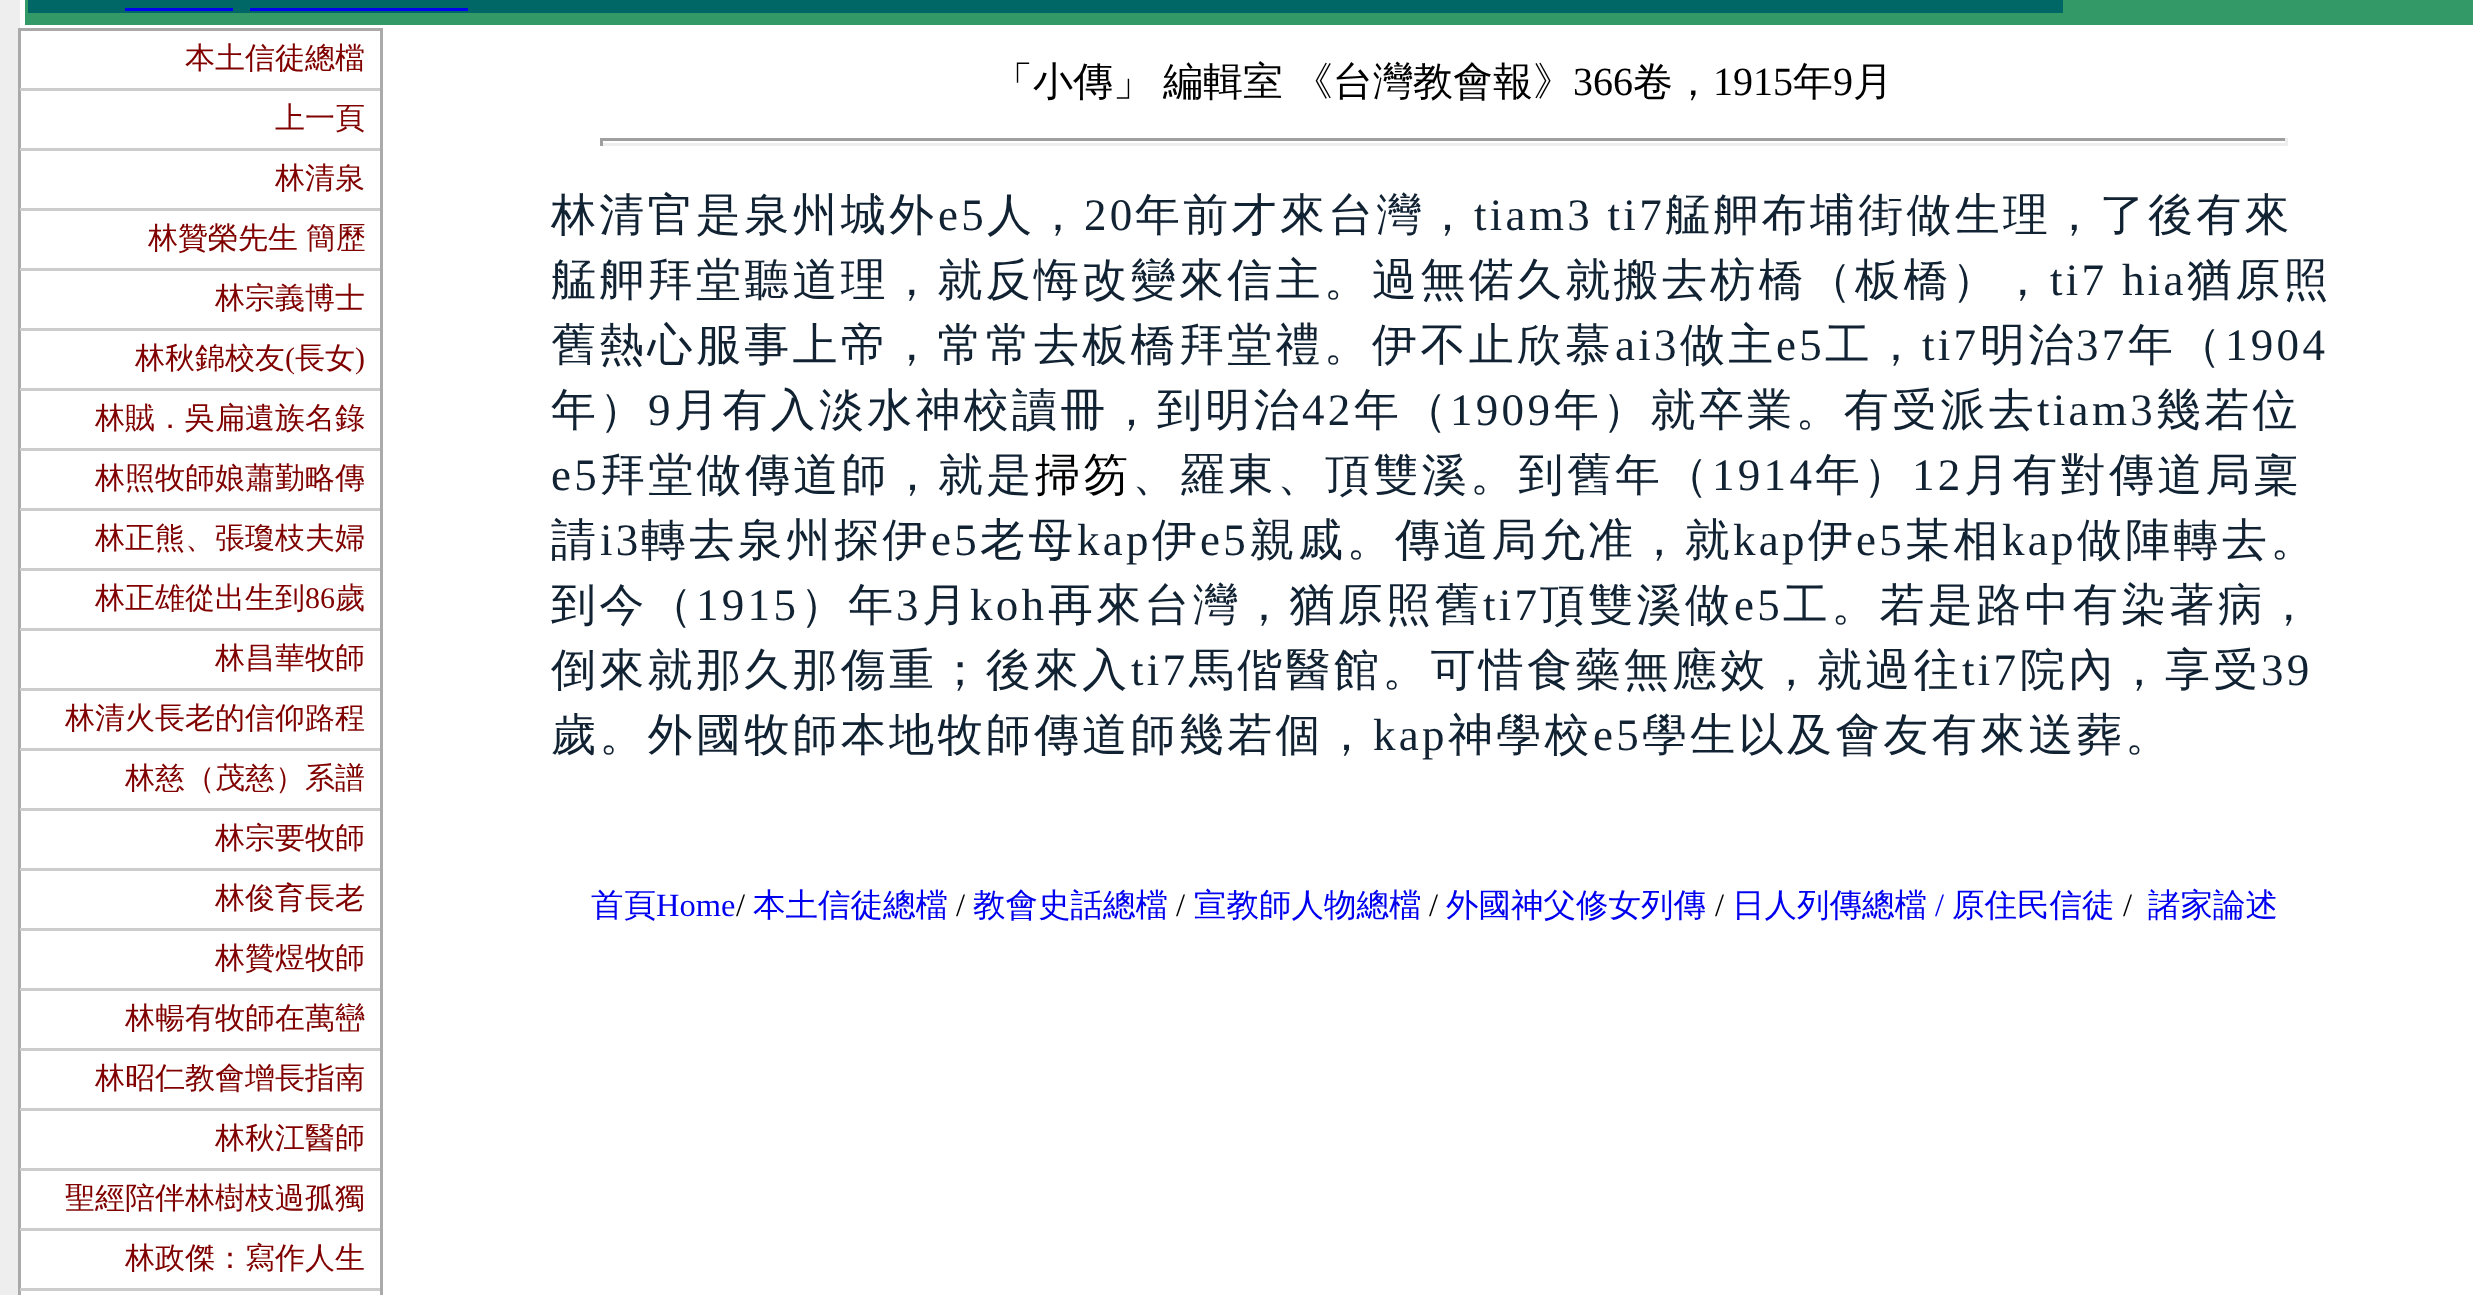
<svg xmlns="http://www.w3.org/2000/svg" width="2473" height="1295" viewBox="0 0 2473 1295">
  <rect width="100%" height="100%" fill="#eeeeee"/>
  <rect x="20" y="0" width="2453" height="30" fill="#ffffff"/>
  <rect x="25" y="0" width="2448" height="25" fill="#339966"/>
  <rect x="28" y="0" width="2035" height="13" fill="#006666"/>
  <rect x="125" y="8" width="108" height="3" fill="#0000ee"/>
  <rect x="250" y="8" width="218" height="3" fill="#0000ee"/>
  <rect x="383" y="30" width="2090" height="1265" fill="#ffffff"/>
  <rect x="19.5" y="29.5" width="362" height="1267" fill="#ffffff" stroke="#aaaaaa" stroke-width="3"/>
  <rect x="20" y="88" width="360" height="3" fill="#cccccc"/>
  <text x="185" y="68" font-family="WenQuanYi Zen Hei" font-size="30" font-weight="500" fill="#800000">本土信徒總檔</text>
  <rect x="20" y="148" width="360" height="3" fill="#cccccc"/>
  <text x="275" y="128" font-family="WenQuanYi Zen Hei" font-size="30" font-weight="500" fill="#800000">上一頁</text>
  <rect x="20" y="208" width="360" height="3" fill="#cccccc"/>
  <text x="275" y="188" font-family="WenQuanYi Zen Hei" font-size="30" font-weight="500" fill="#800000">林清泉</text>
  <rect x="20" y="268" width="360" height="3" fill="#cccccc"/>
  <text x="148" y="248" word-spacing="-1" font-family="WenQuanYi Zen Hei" font-size="30" font-weight="500" fill="#800000">林贊榮先生 簡歷</text>
  <rect x="20" y="328" width="360" height="3" fill="#cccccc"/>
  <text x="215" y="308" font-family="WenQuanYi Zen Hei" font-size="30" font-weight="500" fill="#800000">林宗義博士</text>
  <rect x="20" y="388" width="360" height="3" fill="#cccccc"/>
  <text x="135" y="368" font-family="WenQuanYi Zen Hei" font-size="30" font-weight="500" fill="#800000">林秋錦校友</text>
  <text x="285" y="368" font-family="Liberation Serif" font-size="30" fill="#800000">(</text>
  <text x="295" y="368" font-family="WenQuanYi Zen Hei" font-size="30" font-weight="500" fill="#800000">長女</text>
  <text x="355" y="368" font-family="Liberation Serif" font-size="30" fill="#800000">)</text>
  <rect x="20" y="448" width="360" height="3" fill="#cccccc"/>
  <text x="95" y="428" font-family="WenQuanYi Zen Hei" font-size="30" font-weight="500" fill="#800000">林賊．吳扁遺族名錄</text>
  <rect x="20" y="508" width="360" height="3" fill="#cccccc"/>
  <text x="95" y="488" font-family="WenQuanYi Zen Hei" font-size="30" font-weight="500" fill="#800000">林照牧師娘蕭勤略傳</text>
  <rect x="20" y="568" width="360" height="3" fill="#cccccc"/>
  <text x="95" y="548" font-family="WenQuanYi Zen Hei" font-size="30" font-weight="500" fill="#800000">林正熊、張瓊枝夫婦</text>
  <rect x="20" y="628" width="360" height="3" fill="#cccccc"/>
  <text x="95" y="608" font-family="WenQuanYi Zen Hei" font-size="30" font-weight="500" fill="#800000">林正雄從出生到</text>
  <text x="305" y="608" font-family="Liberation Serif" font-size="30" fill="#800000">86</text>
  <text x="335" y="608" font-family="WenQuanYi Zen Hei" font-size="30" font-weight="500" fill="#800000">歲</text>
  <rect x="20" y="688" width="360" height="3" fill="#cccccc"/>
  <text x="215" y="668" font-family="WenQuanYi Zen Hei" font-size="30" font-weight="500" fill="#800000">林昌華牧師</text>
  <rect x="20" y="748" width="360" height="3" fill="#cccccc"/>
  <text x="65" y="728" font-family="WenQuanYi Zen Hei" font-size="30" font-weight="500" fill="#800000">林清火長老的信仰路程</text>
  <rect x="20" y="808" width="360" height="3" fill="#cccccc"/>
  <text x="125" y="788" font-family="WenQuanYi Zen Hei" font-size="30" font-weight="500" fill="#800000">林慈（茂慈）系譜</text>
  <rect x="20" y="868" width="360" height="3" fill="#cccccc"/>
  <text x="215" y="848" font-family="WenQuanYi Zen Hei" font-size="30" font-weight="500" fill="#800000">林宗要牧師</text>
  <rect x="20" y="928" width="360" height="3" fill="#cccccc"/>
  <text x="215" y="908" font-family="WenQuanYi Zen Hei" font-size="30" font-weight="500" fill="#800000">林俊育長老</text>
  <rect x="20" y="988" width="360" height="3" fill="#cccccc"/>
  <text x="215" y="968" font-family="WenQuanYi Zen Hei" font-size="30" font-weight="500" fill="#800000">林贊煜牧師</text>
  <rect x="20" y="1048" width="360" height="3" fill="#cccccc"/>
  <text x="125" y="1028" font-family="WenQuanYi Zen Hei" font-size="30" font-weight="500" fill="#800000">林暢有牧師在萬巒</text>
  <rect x="20" y="1108" width="360" height="3" fill="#cccccc"/>
  <text x="95" y="1088" font-family="WenQuanYi Zen Hei" font-size="30" font-weight="500" fill="#800000">林昭仁教會增長指南</text>
  <rect x="20" y="1168" width="360" height="3" fill="#cccccc"/>
  <text x="215" y="1148" font-family="WenQuanYi Zen Hei" font-size="30" font-weight="500" fill="#800000">林秋江醫師</text>
  <rect x="20" y="1228" width="360" height="3" fill="#cccccc"/>
  <text x="65" y="1208" font-family="WenQuanYi Zen Hei" font-size="30" font-weight="500" fill="#800000">聖經陪伴林樹枝過孤獨</text>
  <rect x="20" y="1288" width="360" height="3" fill="#cccccc"/>
  <text x="125" y="1268" font-family="WenQuanYi Zen Hei" font-size="30" font-weight="500" fill="#800000">林政傑：寫作人生</text>
  <text x="993" y="95" font-family="WenQuanYi Zen Hei" font-size="40" font-weight="500" fill="#000000">「小傳」</text>
  <text x="1163" y="95" word-spacing="-2" font-family="WenQuanYi Zen Hei" font-size="40" font-weight="500" fill="#000000">編輯室 《台灣教會報》</text>
  <text x="1573" y="95" font-family="Liberation Serif" font-size="40" fill="#000000">366</text>
  <text x="1633" y="95" font-family="WenQuanYi Zen Hei" font-size="40" font-weight="500" fill="#000000">卷，</text>
  <text x="1713" y="95" font-family="Liberation Serif" font-size="40" fill="#000000">1915</text>
  <text x="1793" y="95" font-family="WenQuanYi Zen Hei" font-size="40" font-weight="500" fill="#000000">年</text>
  <text x="1833" y="95" font-family="Liberation Serif" font-size="40" fill="#000000">9</text>
  <text x="1853" y="95" font-family="WenQuanYi Zen Hei" font-size="40" font-weight="500" fill="#000000">月</text>
  <rect x="600" y="138" width="1688" height="3" fill="#9f9f9f"/>
  <rect x="2285" y="138" width="3" height="8" fill="#eeeeee"/>
  <rect x="600" y="143" width="1688" height="3" fill="#eeeeee"/>
  <rect x="600" y="138" width="3" height="8" fill="#9f9f9f"/>
  <text x="551" y="230" font-family="WenQuanYi Zen Hei" font-size="45" font-weight="500" letter-spacing="3.3" fill="#112233">林清官是泉州城外</text>
  <text x="938" y="230" font-family="Liberation Serif" font-size="45" letter-spacing="3.3" fill="#112233">e5</text>
  <text x="987" y="230" font-family="WenQuanYi Zen Hei" font-size="45" font-weight="500" letter-spacing="3.3" fill="#112233">人，</text>
  <text x="1084" y="230" font-family="Liberation Serif" font-size="45" letter-spacing="3.3" fill="#112233">20</text>
  <text x="1135" y="230" font-family="WenQuanYi Zen Hei" font-size="45" font-weight="500" letter-spacing="3.3" fill="#112233">年前才來台灣，</text>
  <text x="1474" y="230" font-family="Liberation Serif" font-size="45" letter-spacing="3.3" fill="#112233">tiam3 ti7</text>
  <text x="1665" y="230" font-family="WenQuanYi Zen Hei" font-size="45" font-weight="500" letter-spacing="3.3" fill="#112233">艋舺布埔街做生理，了後有來</text>
  <text x="551" y="295" font-family="WenQuanYi Zen Hei" font-size="45" font-weight="500" letter-spacing="3.3" fill="#112233">艋舺拜堂聽道理，就反悔改變來信主。過無偌久就搬去枋橋（板橋），</text>
  <text x="2050" y="295" font-family="Liberation Serif" font-size="45" letter-spacing="3.3" fill="#112233">ti7 hia</text>
  <text x="2187" y="295" font-family="WenQuanYi Zen Hei" font-size="45" font-weight="500" letter-spacing="3.3" fill="#112233">猶原照</text>
  <text x="551" y="360" font-family="WenQuanYi Zen Hei" font-size="45" font-weight="500" letter-spacing="3.3" fill="#112233">舊熱心服事上帝，常常去板橋拜堂禮。伊不止欣慕</text>
  <text x="1615" y="360" font-family="Liberation Serif" font-size="45" letter-spacing="3.3" fill="#112233">ai3</text>
  <text x="1680" y="360" font-family="WenQuanYi Zen Hei" font-size="45" font-weight="500" letter-spacing="3.3" fill="#112233">做主</text>
  <text x="1776" y="360" font-family="Liberation Serif" font-size="45" letter-spacing="3.3" fill="#112233">e5</text>
  <text x="1825" y="360" font-family="WenQuanYi Zen Hei" font-size="45" font-weight="500" letter-spacing="3.3" fill="#112233">工，</text>
  <text x="1922" y="360" font-family="Liberation Serif" font-size="45" letter-spacing="3.3" fill="#112233">ti7</text>
  <text x="1980" y="360" font-family="WenQuanYi Zen Hei" font-size="45" font-weight="500" letter-spacing="3.3" fill="#112233">明治</text>
  <text x="2076" y="360" font-family="Liberation Serif" font-size="45" letter-spacing="3.3" fill="#112233">37</text>
  <text x="2128" y="360" font-family="WenQuanYi Zen Hei" font-size="45" font-weight="500" letter-spacing="3.3" fill="#112233">年（</text>
  <text x="2225" y="360" font-family="Liberation Serif" font-size="45" letter-spacing="3.3" fill="#112233">1904</text>
  <text x="551" y="425" font-family="WenQuanYi Zen Hei" font-size="45" font-weight="500" letter-spacing="3.3" fill="#112233">年）</text>
  <text x="648" y="425" font-family="Liberation Serif" font-size="45" letter-spacing="3.3" fill="#112233">9</text>
  <text x="674" y="425" font-family="WenQuanYi Zen Hei" font-size="45" font-weight="500" letter-spacing="3.3" fill="#112233">月有入淡水神校讀冊，到明治</text>
  <text x="1302" y="425" font-family="Liberation Serif" font-size="45" letter-spacing="3.3" fill="#112233">42</text>
  <text x="1354" y="425" font-family="WenQuanYi Zen Hei" font-size="45" font-weight="500" letter-spacing="3.3" fill="#112233">年（</text>
  <text x="1450" y="425" font-family="Liberation Serif" font-size="45" letter-spacing="3.3" fill="#112233">1909</text>
  <text x="1554" y="425" font-family="WenQuanYi Zen Hei" font-size="45" font-weight="500" letter-spacing="3.3" fill="#112233">年）就卒業。有受派去</text>
  <text x="2037" y="425" font-family="Liberation Serif" font-size="45" letter-spacing="3.3" fill="#112233">tiam3</text>
  <text x="2156" y="425" font-family="WenQuanYi Zen Hei" font-size="45" font-weight="500" letter-spacing="3.3" fill="#112233">幾若位</text>
  <text x="551" y="490" font-family="Liberation Serif" font-size="45" letter-spacing="3.3" fill="#112233">e5</text>
  <text x="600" y="490" font-family="WenQuanYi Zen Hei" font-size="45" font-weight="500" letter-spacing="3.3" fill="#112233">拜堂做傳道師，就是</text>
  <text x="1035" y="490" font-family="WenQuanYi Zen Hei" font-size="45" font-weight="500" letter-spacing="3.3" fill="#000000">掃笏</text>
  <text x="1132" y="490" font-family="WenQuanYi Zen Hei" font-size="45" font-weight="500" letter-spacing="3.3" fill="#112233">、羅東、頂雙溪。到舊年（</text>
  <text x="1712" y="490" font-family="Liberation Serif" font-size="45" letter-spacing="3.3" fill="#112233">1914</text>
  <text x="1815" y="490" font-family="WenQuanYi Zen Hei" font-size="45" font-weight="500" letter-spacing="3.3" fill="#112233">年）</text>
  <text x="1912" y="490" font-family="Liberation Serif" font-size="45" letter-spacing="3.3" fill="#112233">12</text>
  <text x="1964" y="490" font-family="WenQuanYi Zen Hei" font-size="45" font-weight="500" letter-spacing="3.3" fill="#112233">月有對傳道局稟</text>
  <text x="551" y="555" font-family="WenQuanYi Zen Hei" font-size="45" font-weight="500" letter-spacing="3.3" fill="#112233">請</text>
  <text x="600" y="555" font-family="Liberation Serif" font-size="45" letter-spacing="3.3" fill="#112233">i3</text>
  <text x="641" y="555" font-family="WenQuanYi Zen Hei" font-size="45" font-weight="500" letter-spacing="3.3" fill="#112233">轉去泉州探伊</text>
  <text x="931" y="555" font-family="Liberation Serif" font-size="45" letter-spacing="3.3" fill="#112233">e5</text>
  <text x="980" y="555" font-family="WenQuanYi Zen Hei" font-size="45" font-weight="500" letter-spacing="3.3" fill="#112233">老母</text>
  <text x="1077" y="555" font-family="Liberation Serif" font-size="45" letter-spacing="3.3" fill="#112233">kap</text>
  <text x="1152" y="555" font-family="WenQuanYi Zen Hei" font-size="45" font-weight="500" letter-spacing="3.3" fill="#112233">伊</text>
  <text x="1200" y="555" font-family="Liberation Serif" font-size="45" letter-spacing="3.3" fill="#112233">e5</text>
  <text x="1250" y="555" font-family="WenQuanYi Zen Hei" font-size="45" font-weight="500" letter-spacing="3.3" fill="#112233">親戚。傳道局允准，就</text>
  <text x="1733" y="555" font-family="Liberation Serif" font-size="45" letter-spacing="3.3" fill="#112233">kap</text>
  <text x="1808" y="555" font-family="WenQuanYi Zen Hei" font-size="45" font-weight="500" letter-spacing="3.3" fill="#112233">伊</text>
  <text x="1856" y="555" font-family="Liberation Serif" font-size="45" letter-spacing="3.3" fill="#112233">e5</text>
  <text x="1905" y="555" font-family="WenQuanYi Zen Hei" font-size="45" font-weight="500" letter-spacing="3.3" fill="#112233">某相</text>
  <text x="2002" y="555" font-family="Liberation Serif" font-size="45" letter-spacing="3.3" fill="#112233">kap</text>
  <text x="2077" y="555" font-family="WenQuanYi Zen Hei" font-size="45" font-weight="500" letter-spacing="3.3" fill="#112233">做陣轉去。</text>
  <text x="551" y="620" font-family="WenQuanYi Zen Hei" font-size="45" font-weight="500" letter-spacing="3.3" fill="#112233">到今（</text>
  <text x="696" y="620" font-family="Liberation Serif" font-size="45" letter-spacing="3.3" fill="#112233">1915</text>
  <text x="800" y="620" font-family="WenQuanYi Zen Hei" font-size="45" font-weight="500" letter-spacing="3.3" fill="#112233">）年</text>
  <text x="896" y="620" font-family="Liberation Serif" font-size="45" letter-spacing="3.3" fill="#112233">3</text>
  <text x="922" y="620" font-family="WenQuanYi Zen Hei" font-size="45" font-weight="500" letter-spacing="3.3" fill="#112233">月</text>
  <text x="970" y="620" font-family="Liberation Serif" font-size="45" letter-spacing="3.3" fill="#112233">koh</text>
  <text x="1048" y="620" font-family="WenQuanYi Zen Hei" font-size="45" font-weight="500" letter-spacing="3.3" fill="#112233">再來台灣，猶原照舊</text>
  <text x="1483" y="620" font-family="Liberation Serif" font-size="45" letter-spacing="3.3" fill="#112233">ti7</text>
  <text x="1540" y="620" font-family="WenQuanYi Zen Hei" font-size="45" font-weight="500" letter-spacing="3.3" fill="#112233">頂雙溪做</text>
  <text x="1734" y="620" font-family="Liberation Serif" font-size="45" letter-spacing="3.3" fill="#112233">e5</text>
  <text x="1783" y="620" font-family="WenQuanYi Zen Hei" font-size="45" font-weight="500" letter-spacing="3.3" fill="#112233">工。若是路中有染著病，</text>
  <text x="551" y="685" font-family="WenQuanYi Zen Hei" font-size="45" font-weight="500" letter-spacing="3.3" fill="#112233">倒來就那久那傷重；後來入</text>
  <text x="1131" y="685" font-family="Liberation Serif" font-size="45" letter-spacing="3.3" fill="#112233">ti7</text>
  <text x="1189" y="685" font-family="WenQuanYi Zen Hei" font-size="45" font-weight="500" letter-spacing="3.3" fill="#112233">馬偕醫館。可惜食藥無應效，就過往</text>
  <text x="1962" y="685" font-family="Liberation Serif" font-size="45" letter-spacing="3.3" fill="#112233">ti7</text>
  <text x="2020" y="685" font-family="WenQuanYi Zen Hei" font-size="45" font-weight="500" letter-spacing="3.3" fill="#112233">院內，享受</text>
  <text x="2261" y="685" font-family="Liberation Serif" font-size="45" letter-spacing="3.3" fill="#112233">39</text>
  <text x="551" y="750" font-family="WenQuanYi Zen Hei" font-size="45" font-weight="500" letter-spacing="3.3" fill="#112233">歲。外國牧師本地牧師傳道師幾若個，</text>
  <text x="1373" y="750" font-family="Liberation Serif" font-size="45" letter-spacing="3.3" fill="#112233">kap</text>
  <text x="1448" y="750" font-family="WenQuanYi Zen Hei" font-size="45" font-weight="500" letter-spacing="3.3" fill="#112233">神學校</text>
  <text x="1593" y="750" font-family="Liberation Serif" font-size="45" letter-spacing="3.3" fill="#112233">e5</text>
  <text x="1642" y="750" font-family="WenQuanYi Zen Hei" font-size="45" font-weight="500" letter-spacing="3.3" fill="#112233">學生以及會友有來送葬。</text>
  <text x="591" y="916" font-family="WenQuanYi Zen Hei" font-size="32.5" font-weight="500" fill="#0000ee">首頁</text>
  <text x="656" y="916" font-family="Liberation Serif" font-size="32.5" fill="#0000ee">Home</text>
  <text x="736" y="916" font-family="Liberation Serif" font-size="32.5" fill="#000000">/</text>
  <text x="753" y="916" font-family="WenQuanYi Zen Hei" font-size="32.5" font-weight="500" fill="#0000ee">本土信徒總檔</text>
  <text x="956" y="916" font-family="Liberation Serif" font-size="32.5" fill="#000000">/</text>
  <text x="973" y="916" font-family="WenQuanYi Zen Hei" font-size="32.5" font-weight="500" fill="#0000ee">教會史話總檔</text>
  <text x="1176" y="916" font-family="Liberation Serif" font-size="32.5" fill="#000000">/</text>
  <text x="1194" y="916" font-family="WenQuanYi Zen Hei" font-size="32.5" font-weight="500" fill="#0000ee">宣教師人物總檔</text>
  <text x="1429" y="916" font-family="Liberation Serif" font-size="32.5" fill="#000000">/</text>
  <text x="1446" y="916" font-family="WenQuanYi Zen Hei" font-size="32.5" font-weight="500" fill="#0000ee">外國神父修女列傳</text>
  <text x="1715" y="916" font-family="Liberation Serif" font-size="32.5" fill="#000000">/</text>
  <text x="1732" y="916" font-family="WenQuanYi Zen Hei" font-size="32.5" font-weight="500" fill="#0000ee">日人列傳總檔</text>
  <text x="1935" y="916" font-family="Liberation Serif" font-size="32.5" fill="#0000ee">/</text>
  <text x="1952" y="916" font-family="WenQuanYi Zen Hei" font-size="32.5" font-weight="500" fill="#0000ee">原住民信徒</text>
  <text x="2123" y="916" font-family="Liberation Serif" font-size="32.5" fill="#000000">/</text>
  <text x="2148" y="916" font-family="WenQuanYi Zen Hei" font-size="32.5" font-weight="500" fill="#0000ee">諸家論述</text>
</svg>
